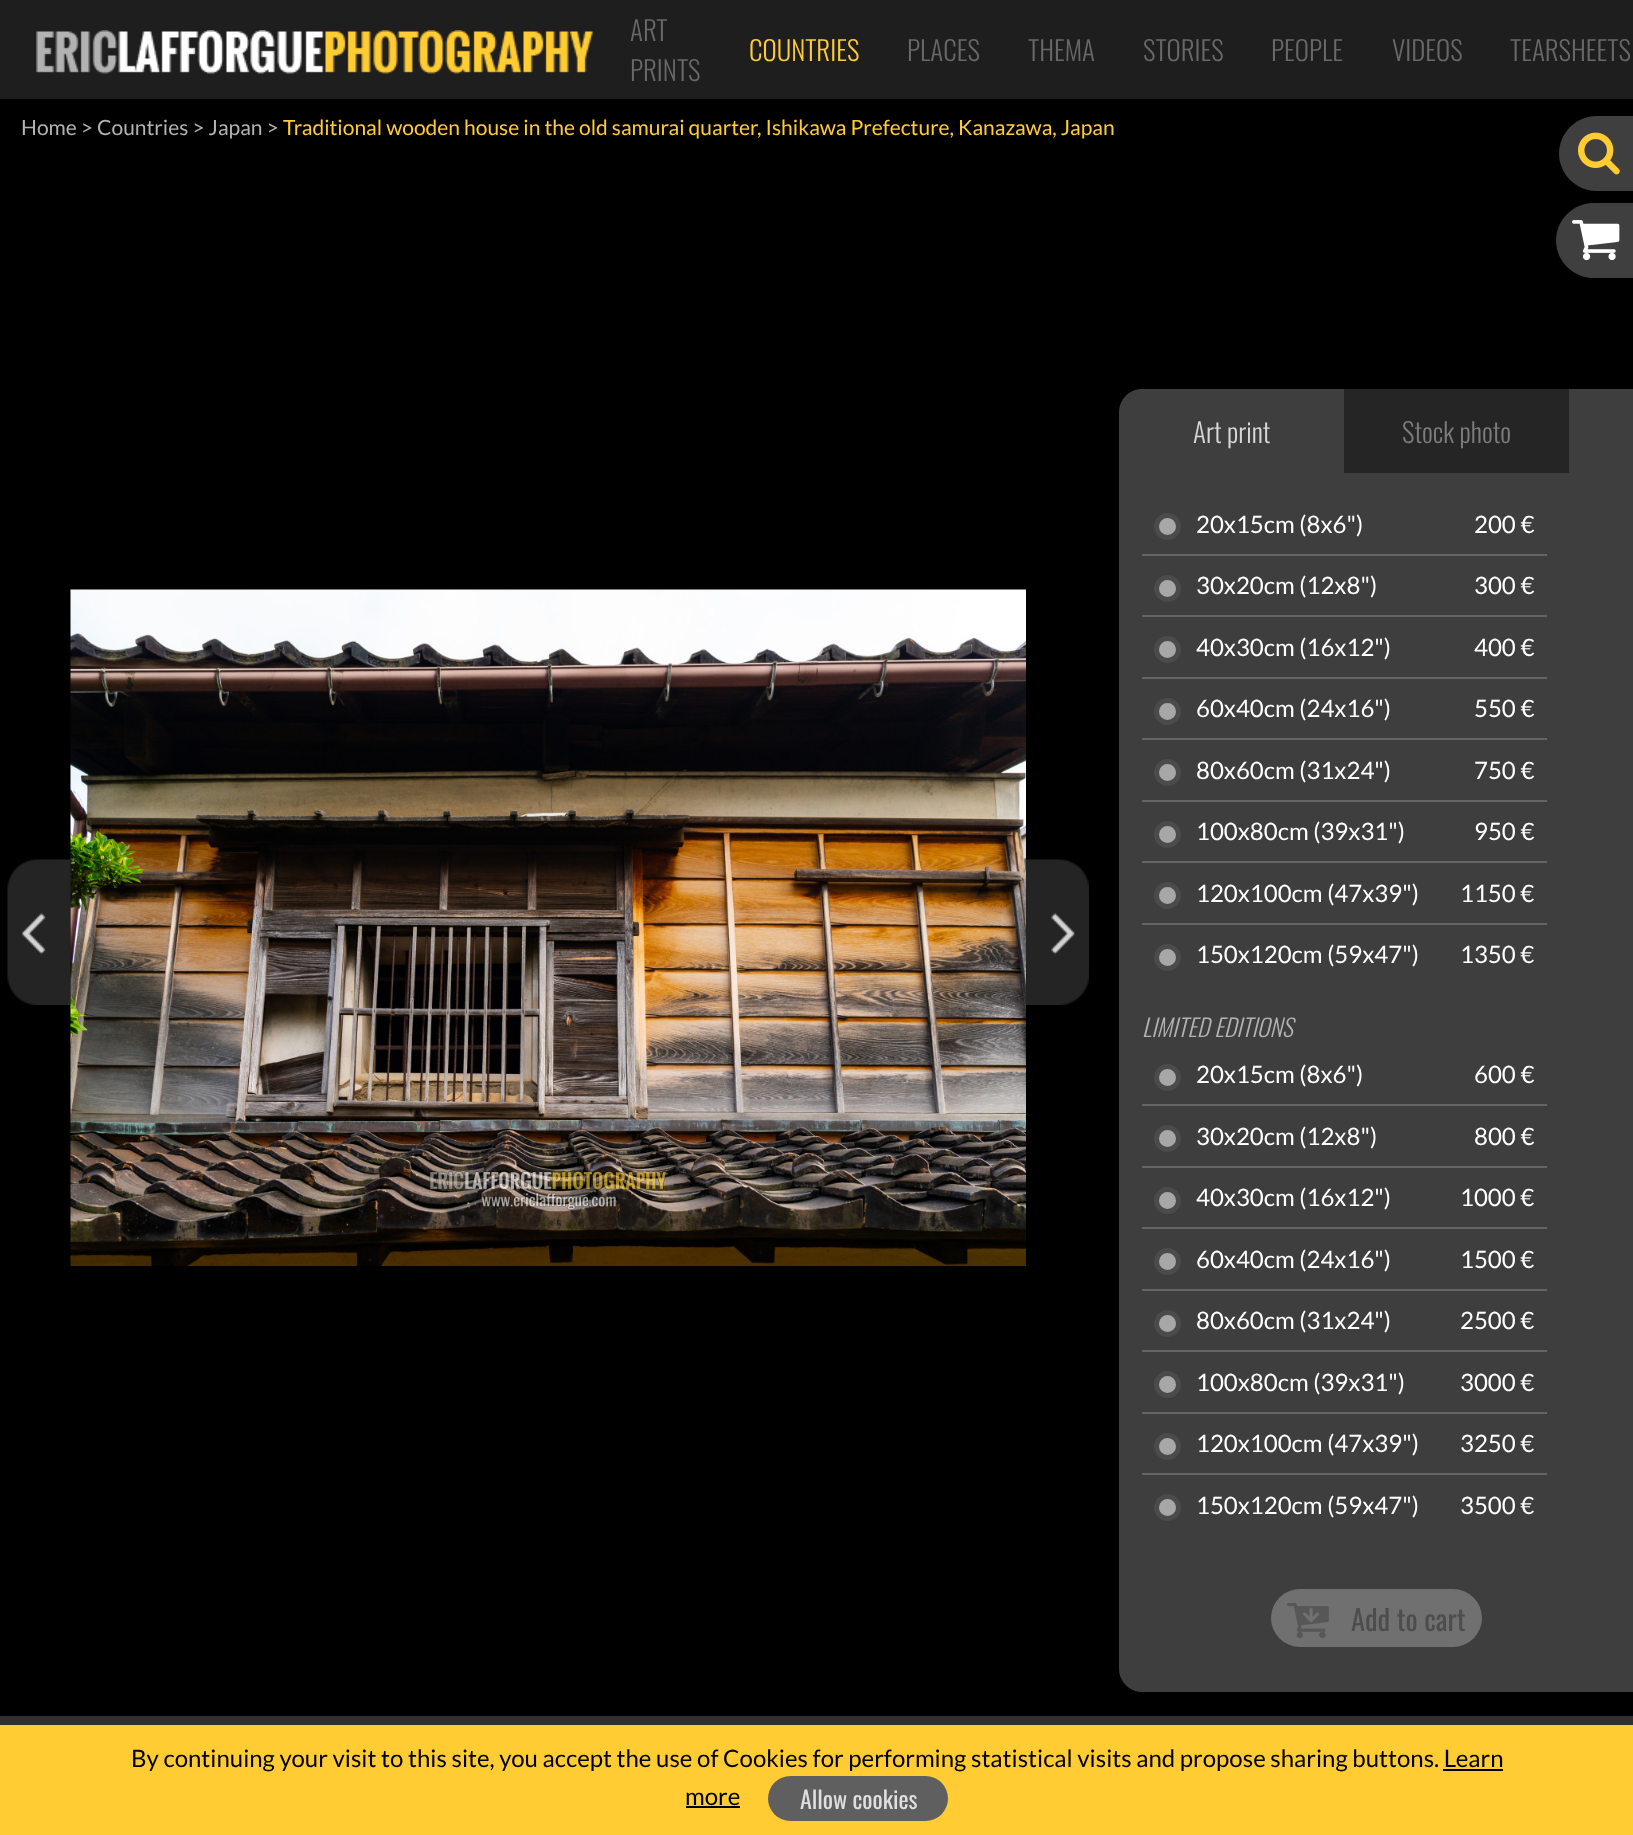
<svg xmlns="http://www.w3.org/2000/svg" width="1633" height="1835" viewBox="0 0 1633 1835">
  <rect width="100%" height="100%" fill="#000000"/>
  <rect x="0" y="0" width="1633" height="99" fill="#1e1e1e"/>
  <image x="36" y="30" width="558" height="44" href="img1.png"/>
  <text x="630" y="41" font-family="Oswald" font-size="27" font-weight="300" fill="#686868">ART</text>
  <text x="630" y="81" font-family="Oswald" font-size="27" font-weight="300" fill="#686868">PRINTS</text>
  <text x="749" y="61" font-family="Oswald" font-size="27" font-weight="300" fill="#ffcc33">COUNTRIES</text>
  <text x="907" y="61" font-family="Oswald" font-size="27" font-weight="300" fill="#686868">PLACES</text>
  <text x="1028" y="61" font-family="Oswald" font-size="27" font-weight="300" fill="#686868">THEMA</text>
  <text x="1143" y="61" font-family="Oswald" font-size="27" font-weight="300" fill="#686868">STORIES</text>
  <text x="1271" y="61" font-family="Oswald" font-size="27" font-weight="300" fill="#686868">PEOPLE</text>
  <text x="1392" y="61" font-family="Oswald" font-size="27" font-weight="300" fill="#686868">VIDEOS</text>
  <text x="1510" y="61" font-family="Oswald" font-size="27" font-weight="300" fill="#686868">TEARSHEETS</text>
  <text x="21" y="135" font-family="Lato" font-size="21" fill="#b2b2b2">Home &gt; Countries &gt; Japan &gt;</text>
  <text x="283" y="135" font-family="Lato" font-size="21" fill="#ffcc33">Traditional wooden house in the old samurai quarter, Ishikawa Prefecture, Kanazawa, Japan</text>
  <path d="M1596.5 116H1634V191H1596.5C1576 191 1559 174 1559 153.5C1559 133 1576 116 1596.5 116Z" fill="#3f3f3f"/>
  <image x="1578" y="132" width="42" height="43" href="img2.png"/>
  <path d="M1593.5 203H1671V278H1593.5C1573 278 1556 261 1556 240.5C1556 220 1573 203 1593.5 203Z" fill="#3f3f3f"/>
  <image x="1572" y="220" width="48" height="41" href="img3.png"/>
  <image x="70" y="589" width="956" height="677" href="img5.png"/>
  <image x="7" y="859" width="64" height="146" href="img4.png"/>
  <image x="1026" y="859" width="63" height="146" href="img6.png"/>
  <path d="M1142 389H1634V1692H1142C1129.5 1692 1119 1681.5 1119 1669V412C1119 399.5 1129.5 389 1142 389Z" fill="#3e3e3e"/>
  <text x="1193" y="443" font-family="Oswald" font-size="27" font-weight="300" fill="#d8d8d8">Art print</text>
  <rect x="1344" y="389" width="225" height="84" fill="#252525"/>
  <text x="1402" y="443" font-family="Oswald" font-size="27" font-weight="300" fill="#7c7c7c">Stock photo</text>
  <rect x="1142" y="554" width="405" height="2" fill="#656565"/>
  <circle cx="1167.5" cy="526.5" r="11" fill="#a7a7a7" stroke="#4b4b4b" stroke-width="5"/>
  <text x="1196" y="533" font-family="Lato" font-size="24" fill="#ffffff">20x15cm (8x6")</text>
  <text x="1474" y="533" font-family="Lato" font-size="24" fill="#ffffff">200 €</text>
  <rect x="1142" y="615" width="405" height="2" fill="#656565"/>
  <circle cx="1167.5" cy="588.5" r="11" fill="#a7a7a7" stroke="#4b4b4b" stroke-width="5"/>
  <text x="1196" y="594" font-family="Lato" font-size="24" fill="#ffffff">30x20cm (12x8")</text>
  <text x="1474" y="594" font-family="Lato" font-size="24" fill="#ffffff">300 €</text>
  <rect x="1142" y="677" width="405" height="2" fill="#656565"/>
  <circle cx="1167.5" cy="649.5" r="11" fill="#a7a7a7" stroke="#4b4b4b" stroke-width="5"/>
  <text x="1196" y="656" font-family="Lato" font-size="24" fill="#ffffff">40x30cm (16x12")</text>
  <text x="1474" y="656" font-family="Lato" font-size="24" fill="#ffffff">400 €</text>
  <rect x="1142" y="738" width="405" height="2" fill="#656565"/>
  <circle cx="1167.5" cy="711.5" r="11" fill="#a7a7a7" stroke="#4b4b4b" stroke-width="5"/>
  <text x="1196" y="717" font-family="Lato" font-size="24" fill="#ffffff">60x40cm (24x16")</text>
  <text x="1474" y="717" font-family="Lato" font-size="24" fill="#ffffff">550 €</text>
  <rect x="1142" y="800" width="405" height="2" fill="#656565"/>
  <circle cx="1167.5" cy="772.5" r="11" fill="#a7a7a7" stroke="#4b4b4b" stroke-width="5"/>
  <text x="1196" y="779" font-family="Lato" font-size="24" fill="#ffffff">80x60cm (31x24")</text>
  <text x="1474" y="779" font-family="Lato" font-size="24" fill="#ffffff">750 €</text>
  <rect x="1142" y="861" width="405" height="2" fill="#656565"/>
  <circle cx="1167.5" cy="834.5" r="11" fill="#a7a7a7" stroke="#4b4b4b" stroke-width="5"/>
  <text x="1196" y="840" font-family="Lato" font-size="24" fill="#ffffff">100x80cm (39x31")</text>
  <text x="1474" y="840" font-family="Lato" font-size="24" fill="#ffffff">950 €</text>
  <rect x="1142" y="923" width="405" height="2" fill="#656565"/>
  <circle cx="1167.5" cy="895.5" r="11" fill="#a7a7a7" stroke="#4b4b4b" stroke-width="5"/>
  <text x="1196" y="902" font-family="Lato" font-size="24" fill="#ffffff">120x100cm (47x39")</text>
  <text x="1460" y="902" font-family="Lato" font-size="24" fill="#ffffff">1150 €</text>
  <circle cx="1167.5" cy="957.5" r="11" fill="#a7a7a7" stroke="#4b4b4b" stroke-width="5"/>
  <text x="1196" y="963" font-family="Lato" font-size="24" fill="#ffffff">150x120cm (59x47")</text>
  <text x="1460" y="963" font-family="Lato" font-size="24" fill="#ffffff">1350 €</text>
  <text x="1142" y="1037" font-family="Oswald" font-size="24" font-weight="300" font-style="italic" fill="#b2b2b2">LIMITED EDITIONS</text>
  <rect x="1142" y="1104" width="405" height="2" fill="#656565"/>
  <circle cx="1167.5" cy="1077.5" r="11" fill="#a7a7a7" stroke="#4b4b4b" stroke-width="5"/>
  <text x="1196" y="1083" font-family="Lato" font-size="24" fill="#ffffff">20x15cm (8x6")</text>
  <text x="1474" y="1083" font-family="Lato" font-size="24" fill="#ffffff">600 €</text>
  <rect x="1142" y="1166" width="405" height="2" fill="#656565"/>
  <circle cx="1167.5" cy="1138.5" r="11" fill="#a7a7a7" stroke="#4b4b4b" stroke-width="5"/>
  <text x="1196" y="1145" font-family="Lato" font-size="24" fill="#ffffff">30x20cm (12x8")</text>
  <text x="1474" y="1145" font-family="Lato" font-size="24" fill="#ffffff">800 €</text>
  <rect x="1142" y="1227" width="405" height="2" fill="#656565"/>
  <circle cx="1167.5" cy="1200.5" r="11" fill="#a7a7a7" stroke="#4b4b4b" stroke-width="5"/>
  <text x="1196" y="1206" font-family="Lato" font-size="24" fill="#ffffff">40x30cm (16x12")</text>
  <text x="1460" y="1206" font-family="Lato" font-size="24" fill="#ffffff">1000 €</text>
  <rect x="1142" y="1289" width="405" height="2" fill="#656565"/>
  <circle cx="1167.5" cy="1261.5" r="11" fill="#a7a7a7" stroke="#4b4b4b" stroke-width="5"/>
  <text x="1196" y="1268" font-family="Lato" font-size="24" fill="#ffffff">60x40cm (24x16")</text>
  <text x="1460" y="1268" font-family="Lato" font-size="24" fill="#ffffff">1500 €</text>
  <rect x="1142" y="1350" width="405" height="2" fill="#656565"/>
  <circle cx="1167.5" cy="1323.5" r="11" fill="#a7a7a7" stroke="#4b4b4b" stroke-width="5"/>
  <text x="1196" y="1329" font-family="Lato" font-size="24" fill="#ffffff">80x60cm (31x24")</text>
  <text x="1460" y="1329" font-family="Lato" font-size="24" fill="#ffffff">2500 €</text>
  <rect x="1142" y="1412" width="405" height="2" fill="#656565"/>
  <circle cx="1167.5" cy="1384.5" r="11" fill="#a7a7a7" stroke="#4b4b4b" stroke-width="5"/>
  <text x="1196" y="1391" font-family="Lato" font-size="24" fill="#ffffff">100x80cm (39x31")</text>
  <text x="1460" y="1391" font-family="Lato" font-size="24" fill="#ffffff">3000 €</text>
  <rect x="1142" y="1473" width="405" height="2" fill="#656565"/>
  <circle cx="1167.5" cy="1446.5" r="11" fill="#a7a7a7" stroke="#4b4b4b" stroke-width="5"/>
  <text x="1196" y="1452" font-family="Lato" font-size="24" fill="#ffffff">120x100cm (47x39")</text>
  <text x="1460" y="1452" font-family="Lato" font-size="24" fill="#ffffff">3250 €</text>
  <circle cx="1167.5" cy="1507.5" r="11" fill="#a7a7a7" stroke="#4b4b4b" stroke-width="5"/>
  <text x="1196" y="1514" font-family="Lato" font-size="24" fill="#ffffff">150x120cm (59x47")</text>
  <text x="1460" y="1514" font-family="Lato" font-size="24" fill="#ffffff">3500 €</text>
  <rect x="1271" y="1589" width="211" height="58" rx="29" fill="#707070"/>
  <image x="1287" y="1603" width="42" height="36" href="img7.png"/>
  <text x="1351" y="1631" font-family="Oswald" font-size="28.5" fill="#4d4d4d">Add to cart</text>
  <rect x="0" y="1716" width="1633" height="9" fill="#303030"/>
  <rect x="0" y="1725" width="1633" height="110" fill="#ffcc33"/>
  <text x="131" y="1767" font-family="Lato" font-size="24" fill="#000000">By continuing your visit to this site, you accept the use of Cookies for performing statistical visits and propose sharing buttons. Learn</text>
  <rect x="1443" y="1769" width="60" height="2" fill="#000000"/>
  <text x="685" y="1805" font-family="Lato" font-size="24" fill="#000000">more</text>
  <rect x="686" y="1806" width="54" height="2" fill="#000000"/>
  <rect x="768" y="1776" width="180" height="45" rx="22.5" fill="#5f5f5f"/>
  <text x="800" y="1809" font-family="Oswald" font-size="24" fill="#dfdfdf">Allow cookies</text>
</svg>
